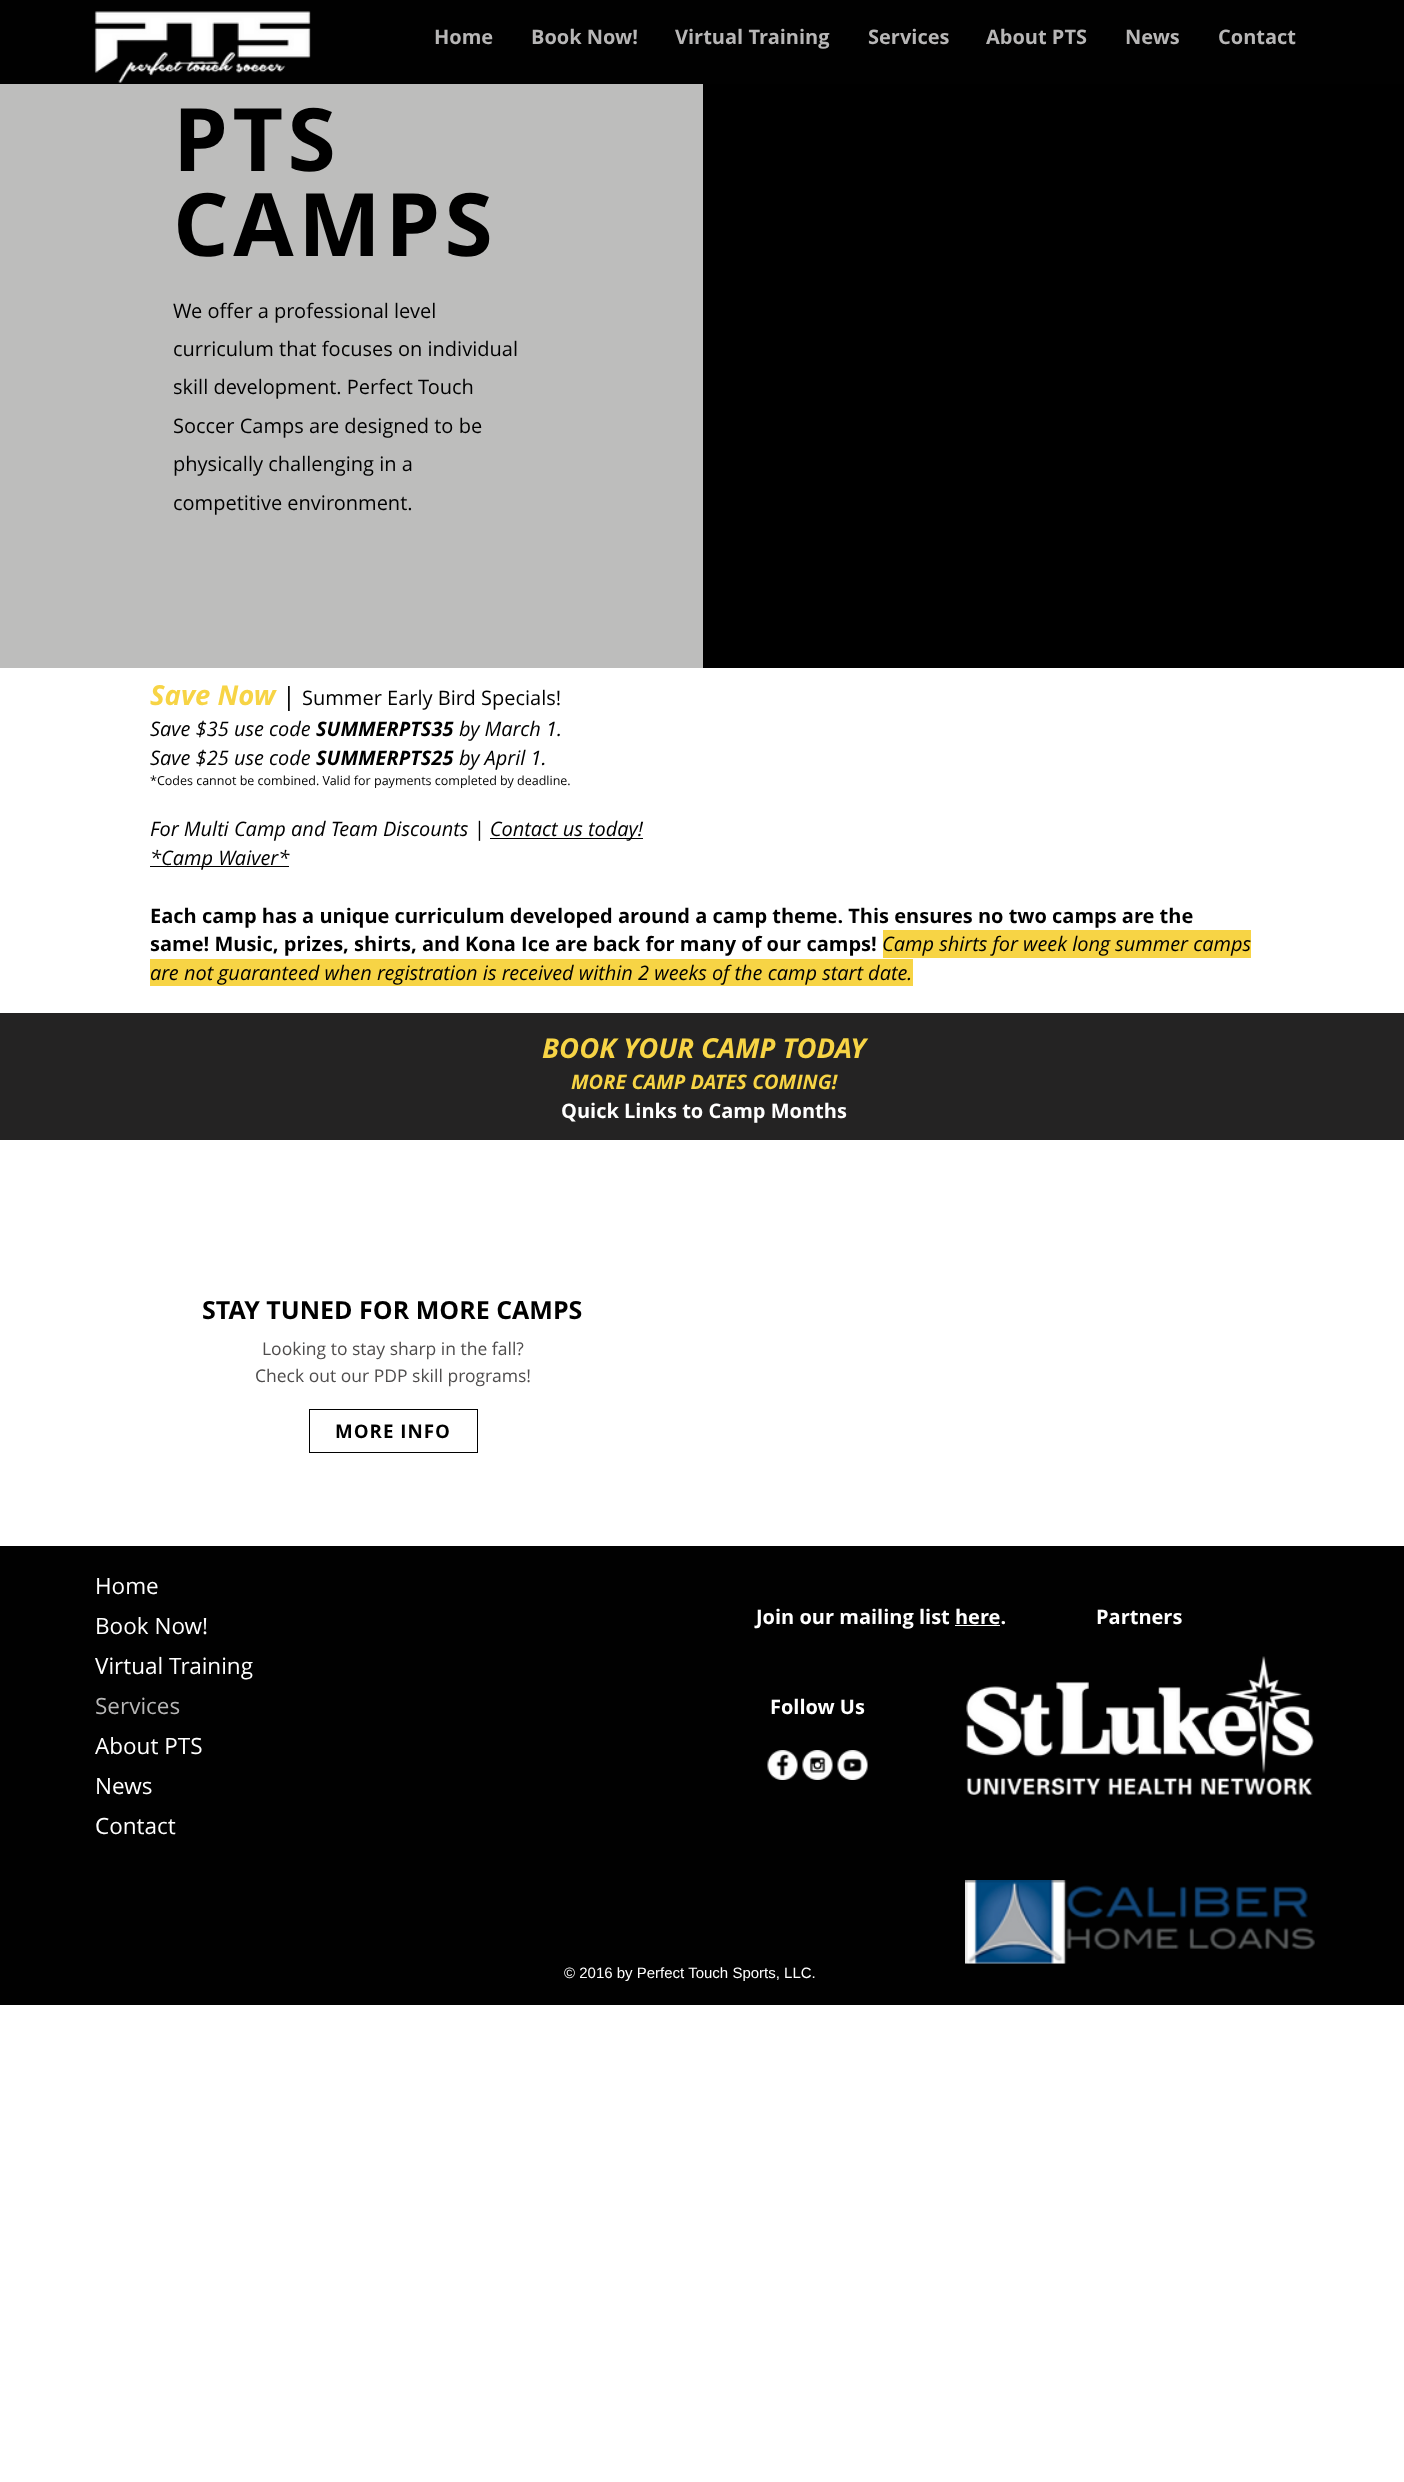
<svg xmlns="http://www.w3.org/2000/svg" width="1404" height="2482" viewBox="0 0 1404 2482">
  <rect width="100%" height="100%" fill="#ffffff"/>
  <rect x="0" y="0" width="1404" height="84" fill="#010101"/>
  <image x="94" y="11" width="217" height="72" href="img1.png"/>
  <text x="434" y="44" font-family="Open Sans" font-size="20" font-weight="bold" fill="#b7b6b6">Home</text>
  <text x="531" y="44" font-family="Open Sans" font-size="20" font-weight="bold" fill="#b7b6b6">Book Now!</text>
  <text x="675" y="44" font-family="Open Sans" font-size="20" font-weight="bold" fill="#b7b6b6">Virtual Training</text>
  <text x="868" y="44" font-family="Open Sans" font-size="20" font-weight="bold" fill="#b7b6b6">Services</text>
  <text x="986" y="44" font-family="Open Sans" font-size="20" font-weight="bold" fill="#b7b6b6">About PTS</text>
  <text x="1125" y="44" font-family="Open Sans" font-size="20" font-weight="bold" fill="#b7b6b6">News</text>
  <text x="1218" y="44" font-family="Open Sans" font-size="20" font-weight="bold" fill="#b7b6b6">Contact</text>
  <rect x="0" y="84" width="703" height="584" fill="#bdbdbc"/>
  <text x="173" y="171" font-family="Open Sans" font-size="87.5" font-weight="bold" letter-spacing="4.5" fill="#000000">PTS</text>
  <text x="173" y="256" font-family="Open Sans" font-size="87.5" font-weight="bold" letter-spacing="4.5" fill="#000000">CAMPS</text>
  <text x="173" y="318" font-family="Open Sans" font-size="20" fill="#000000">We offer a professional level</text>
  <text x="173" y="356" font-family="Open Sans" font-size="20" fill="#000000">curriculum that focuses on individual</text>
  <text x="173" y="394" font-family="Open Sans" font-size="20" fill="#000000">skill development. Perfect Touch</text>
  <text x="173" y="433" font-family="Open Sans" font-size="20" fill="#000000">Soccer Camps are designed to be</text>
  <text x="173" y="471" font-family="Open Sans" font-size="20" fill="#000000">physically challenging in a</text>
  <text x="173" y="510" font-family="Open Sans" font-size="20" fill="#000000">competitive environment.</text>
  <rect x="703" y="84" width="701" height="584" fill="#000000"/>
  <text x="150" y="705" font-family="Open Sans" font-size="27.5" font-weight="bold" font-style="italic" fill="#f7d445">Save Now</text>
  <text x="282" y="705" font-family="Open Sans" font-size="25" fill="#000000">|</text>
  <text x="302" y="705" font-family="Open Sans" font-size="20" fill="#000000">Summer Early Bird Specials!</text>
  <text x="150" y="736" font-family="Open Sans" font-size="20" font-style="italic" fill="#000000">Save $35 use code</text>
  <text x="316" y="736" font-family="Open Sans" font-size="20" font-weight="bold" font-style="italic" fill="#000000">SUMMERPTS35</text>
  <text x="459" y="736" font-family="Open Sans" font-size="20" font-style="italic" fill="#000000">by March 1.</text>
  <text x="150" y="765" font-family="Open Sans" font-size="20" font-style="italic" fill="#000000">Save $25 use code</text>
  <text x="316" y="765" font-family="Open Sans" font-size="20" font-weight="bold" font-style="italic" fill="#000000">SUMMERPTS25</text>
  <text x="459" y="765" font-family="Open Sans" font-size="20" font-style="italic" fill="#000000">by April 1.</text>
  <text x="150" y="785" font-family="Open Sans" font-size="12.5" fill="#000000">*Codes cannot be combined. Valid for payments completed by deadline.</text>
  <text x="150" y="836" font-family="Open Sans" font-size="20" font-style="italic" fill="#000000">For Multi Camp and Team Discounts | Contact us</text>
  <rect x="490" y="838" width="153" height="1" fill="#010101"/>
  <text x="588" y="836" font-family="Open Sans" font-size="20" font-style="italic" fill="#000000">today!</text>
  <rect x="150" y="866" width="139" height="1" fill="#010101"/>
  <text x="150" y="865" font-family="Open Sans" font-size="20" font-style="italic" fill="#000000">*Camp Waiver*</text>
  <text x="150" y="923" font-family="Open Sans" font-size="20" font-weight="bold" fill="#000000">Each camp has a unique curriculum developed around a camp theme. This ensures no two camps are the</text>
  <text x="150" y="951" font-family="Open Sans" font-size="20" font-weight="bold" fill="#000000">same! Music, prizes, shirts, and Kona Ice are back for many of our camps!</text>
  <rect x="883" y="930" width="368" height="28" fill="#f7d445"/>
  <text x="882" y="951" font-family="Open Sans" font-size="20" font-style="italic" fill="#000000">Camp shirts for week long summer camps</text>
  <rect x="150" y="959" width="763" height="27" fill="#f7d445"/>
  <text x="150" y="980" font-family="Open Sans" font-size="20" font-style="italic" fill="#000000">are not guaranteed when registration is received within 2 weeks of the camp start date.</text>
  <rect x="0" y="1013" width="1404" height="127" fill="#242323"/>
  <text x="542" y="1058" font-family="Open Sans" font-size="27.5" font-weight="bold" font-style="italic" fill="#f7d445">BOOK YOUR CAMP TODAY</text>
  <text x="571" y="1089" font-family="Open Sans" font-size="20" font-weight="bold" font-style="italic" fill="#f7d445">MORE CAMP DATES COMING!</text>
  <text x="561" y="1118" font-family="Open Sans" font-size="20" font-weight="bold" fill="#ffffff">Quick Links to Camp Months</text>
  <text x="202" y="1319" font-family="Open Sans" font-size="25" font-weight="bold" fill="#000000">STAY TUNED FOR MORE CAMPS</text>
  <text x="262" y="1355" font-family="Open Sans" font-size="17.5" fill="#4f4d4d">Looking to stay sharp in the fall?</text>
  <text x="255" y="1382" font-family="Open Sans" font-size="17.5" fill="#4f4d4d">Check out our PDP skill programs!</text>
  <rect x="309.5" y="1409.5" width="168" height="43" fill="none" stroke="#010101"/>
  <text x="335" y="1438" font-family="Open Sans" font-size="18.75" font-weight="bold" letter-spacing="1" fill="#000000">MORE INFO</text>
  <rect x="0" y="1546" width="1404" height="459" fill="#010101"/>
  <text x="95" y="1594" font-family="Open Sans" font-size="22.5" fill="#ffffff">Home</text>
  <text x="95" y="1634" font-family="Open Sans" font-size="22.5" fill="#ffffff">Book Now!</text>
  <text x="95" y="1674" font-family="Open Sans" font-size="22.5" fill="#ffffff">Virtual Training</text>
  <text x="95" y="1714" font-family="Open Sans" font-size="22.5" fill="#b7b6b6">Services</text>
  <text x="95" y="1754" font-family="Open Sans" font-size="22.5" fill="#ffffff">About PTS</text>
  <text x="95" y="1794" font-family="Open Sans" font-size="22.5" fill="#ffffff">News</text>
  <text x="95" y="1834" font-family="Open Sans" font-size="22.5" fill="#ffffff">Contact</text>
  <text x="756" y="1624" font-family="Open Sans" font-size="20" font-weight="bold" fill="#ffffff">Join our mailing list here.</text>
  <rect x="955" y="1625" width="45" height="1" fill="#feffff"/>
  <text x="1096" y="1624" font-family="Open Sans" font-size="20" font-weight="bold" fill="#ffffff">Partners</text>
  <text x="770" y="1714" font-family="Open Sans" font-size="20" font-weight="bold" fill="#ffffff">Follow Us</text>
  <image x="966" y="1656" width="348" height="139" href="img2.png"/>
  <image x="767" y="1750" width="31" height="30" href="img3.png"/>
  <image x="802" y="1750" width="31" height="30" href="img4.png"/>
  <image x="837" y="1750" width="31" height="30" href="img5.png"/>
  <image x="965" y="1880" width="350" height="84" href="img6.png"/>
  <text x="564" y="1978" font-family="Liberation Sans" font-size="15" fill="#ffffff">© 2016 by Perfect Touch Sports, LLC.</text>
</svg>
